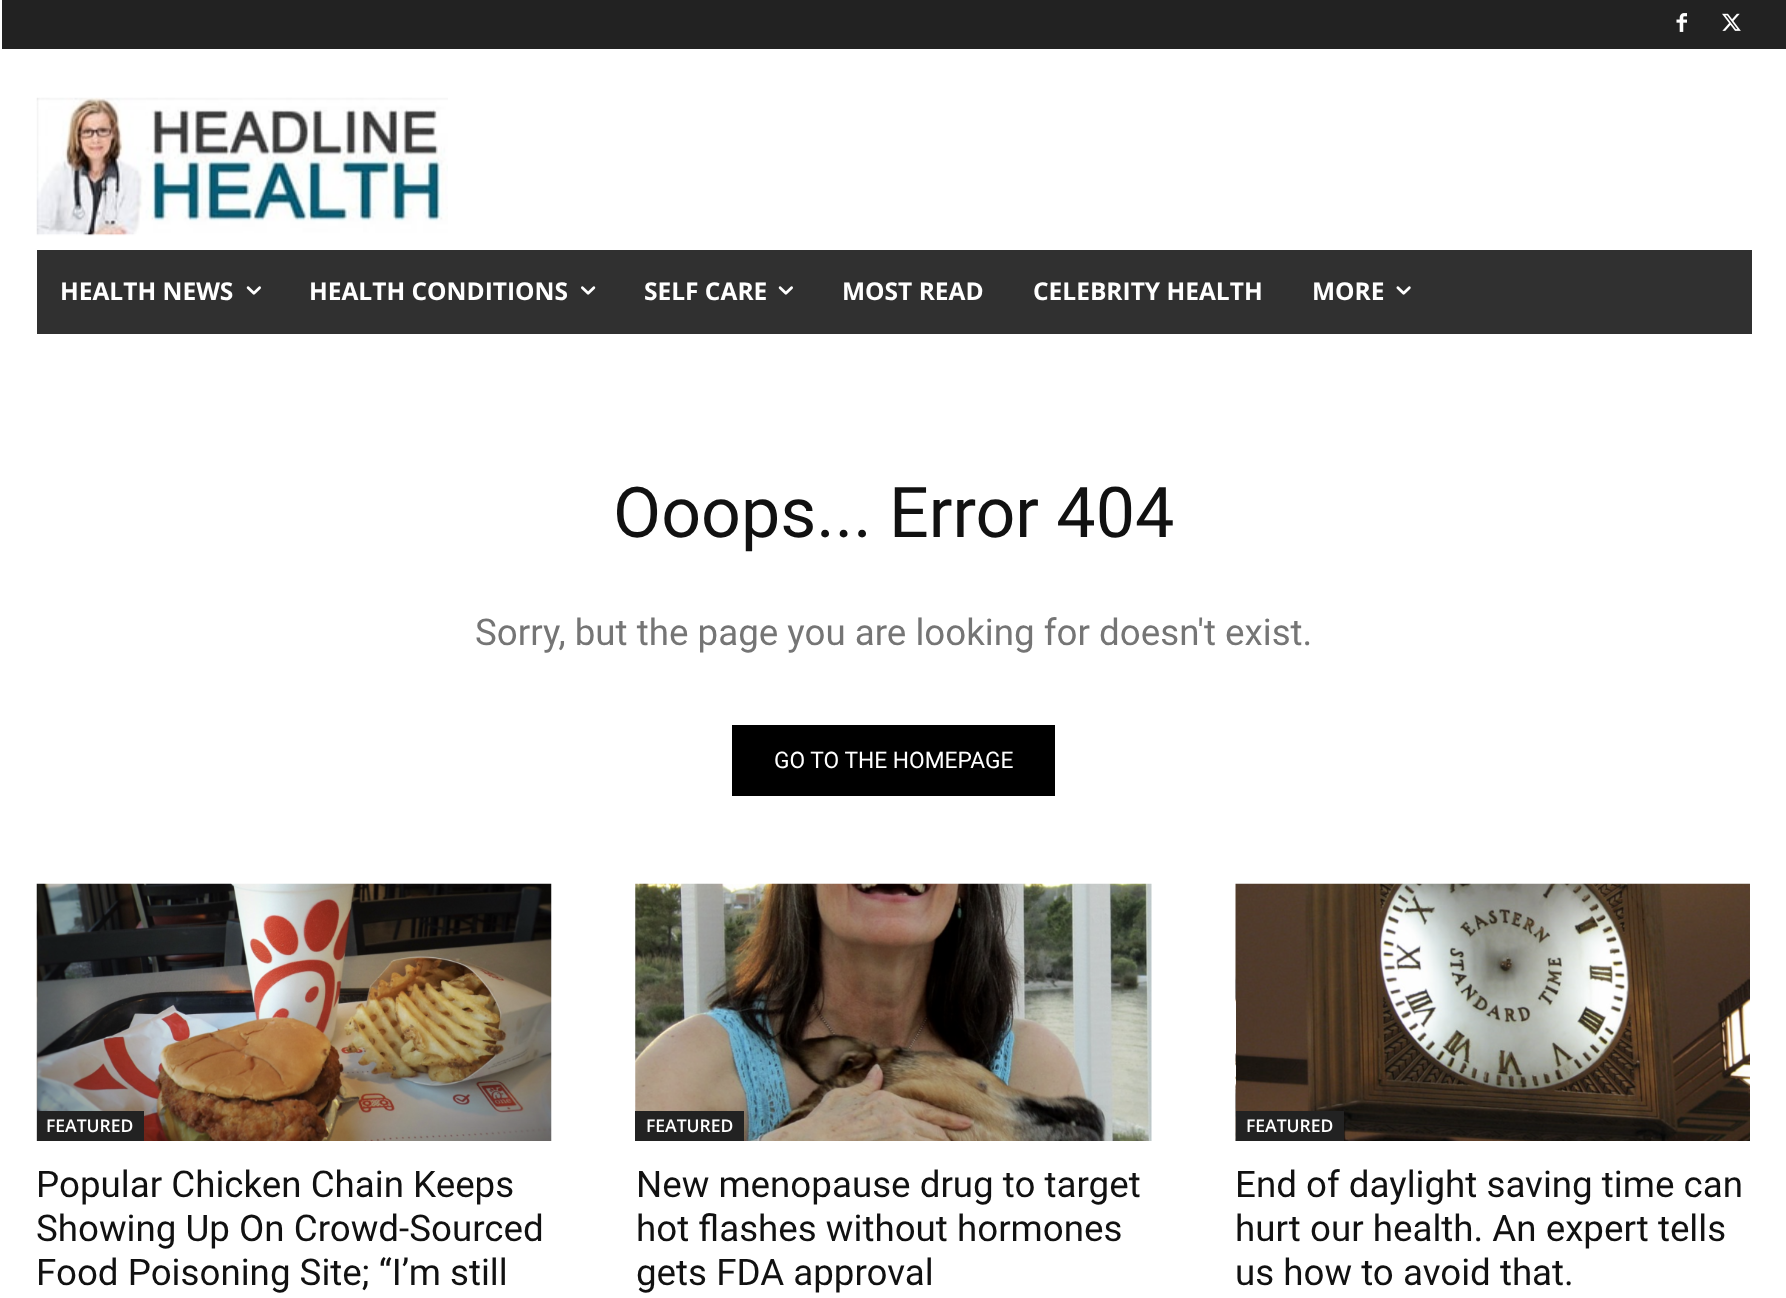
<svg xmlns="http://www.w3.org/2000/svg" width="1786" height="1298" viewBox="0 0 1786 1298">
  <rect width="100%" height="100%" fill="#ffffff"/>
  <rect x="2" y="0" width="1784" height="49" fill="#222222"/>
  <image x="1676" y="13" width="11" height="19" href="img1.png"/>
  <image x="1722" y="13" width="19" height="18" href="img2.png"/>
  <image x="36" y="97" width="412" height="139" href="img3.png"/>
  <rect x="37" y="250" width="1715" height="84" fill="#303030"/>
  <text x="60" y="300" font-family="Open Sans" font-size="24.5" font-weight="bold" fill="#ffffff">HEALTH NEWS</text>
  <image x="246" y="286" width="15" height="9" href="img4.png"/>
  <text x="309" y="300" font-family="Open Sans" font-size="24.5" font-weight="bold" fill="#ffffff">HEALTH CONDITIONS</text>
  <image x="581" y="286" width="15" height="9" href="img5.png"/>
  <text x="644" y="300" font-family="Open Sans" font-size="24.5" font-weight="bold" fill="#ffffff">SELF CARE</text>
  <image x="778" y="286" width="15" height="9" href="img4.png"/>
  <text x="842" y="300" font-family="Open Sans" font-size="24.5" font-weight="bold" fill="#ffffff">MOST READ</text>
  <text x="1033" y="300" font-family="Open Sans" font-size="24.5" font-weight="bold" fill="#ffffff">CELEBRITY HEALTH</text>
  <text x="1312" y="300" font-family="Open Sans" font-size="24.5" font-weight="bold" fill="#ffffff">MORE</text>
  <image x="1396" y="286" width="15" height="9" href="img6.png"/>
  <text x="613" y="537" font-family="Roboto" font-size="70" fill="#111111">Ooops... Error 404</text>
  <text x="475" y="645" font-family="Roboto" font-size="36.75" fill="#757575">Sorry, but the page you are looking for doesn't exist.</text>
  <rect x="732" y="725" width="323" height="71" fill="#000000"/>
  <text x="774" y="768" font-family="Roboto" font-size="22.75" fill="#ffffff">GO TO THE HOMEPAGE</text>
  <image x="36" y="883" width="516" height="258" href="img7.png"/>
  <rect x="37" y="1111" width="107" height="30" fill="#222222"/>
  <text x="46" y="1132" font-family="Open Sans" font-size="17.5" font-weight="600" fill="#ffffff">FEATURED</text>
  <text x="36" y="1197" font-family="Roboto" font-size="36.75" fill="#111111">Popular Chicken Chain Keeps</text>
  <text x="36" y="1241" font-family="Roboto" font-size="36.75" fill="#111111">Showing Up On Crowd-Sourced</text>
  <text x="36" y="1285" font-family="Roboto" font-size="36.75" fill="#111111">Food Poisoning Site; “I’m still</text>
  <image x="635" y="883" width="517" height="258" href="img8.png"/>
  <rect x="635" y="1111" width="109" height="30" fill="#222222"/>
  <text x="646" y="1132" font-family="Open Sans" font-size="17.5" font-weight="600" fill="#ffffff">FEATURED</text>
  <text x="636" y="1197" font-family="Roboto" font-size="36.75" fill="#111111">New menopause drug to target</text>
  <text x="636" y="1241" font-family="Roboto" font-size="36.75" fill="#111111">hot flashes without hormones</text>
  <text x="636" y="1285" font-family="Roboto" font-size="36.75" fill="#111111">gets FDA approval</text>
  <image x="1235" y="883" width="515" height="258" href="img9.png"/>
  <rect x="1236" y="1111" width="108" height="30" fill="#222222"/>
  <text x="1246" y="1132" font-family="Open Sans" font-size="17.5" font-weight="600" fill="#ffffff">FEATURED</text>
  <text x="1235" y="1197" font-family="Roboto" font-size="36.75" fill="#111111">End of daylight saving time can</text>
  <text x="1235" y="1241" font-family="Roboto" font-size="36.75" fill="#111111">hurt our health. An expert tells</text>
  <text x="1235" y="1285" font-family="Roboto" font-size="36.75" fill="#111111">us how to avoid that.</text>
</svg>
